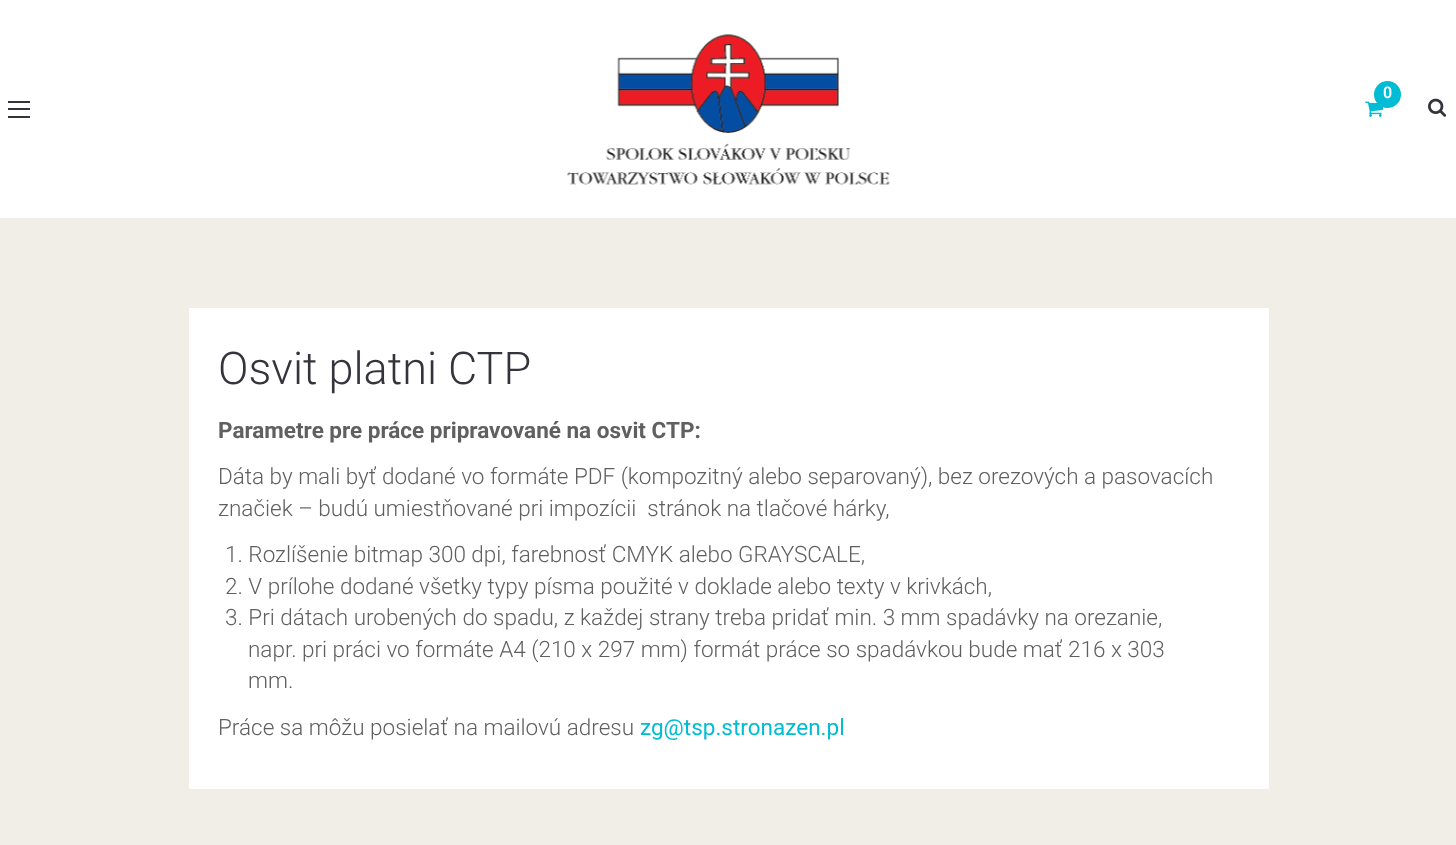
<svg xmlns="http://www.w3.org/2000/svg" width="1456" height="845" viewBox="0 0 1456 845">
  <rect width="100%" height="100%" fill="#ffffff"/>
  <image x="567" y="34" width="323" height="151" href="img1.png"/>
  <image x="1365" y="101" width="19" height="16" href="img2.png"/>
  <circle cx="1387.5" cy="94.5" r="13.5" fill="#00bcd4"/>
  <text x="1383" y="98" font-family="Roboto" font-size="16" font-weight="600" fill="#ffffff">0</text>
  <image x="1428" y="98" width="19" height="19" href="img3.png"/>
  <rect x="8" y="116" width="22" height="2" fill="#34343c"/>
  <rect x="8" y="101" width="22" height="2" fill="#34343c"/>
  <rect x="8" y="108" width="22" height="2" fill="#34343c"/>
  <rect x="0" y="218" width="1456" height="627" fill="#f0eee6"/>
  <rect x="189" y="308" width="1080" height="481" fill="#ffffff"/>
  <text x="218" y="384" font-family="Roboto" font-size="45" font-weight="300" fill="#34343c">Osvit platni CTP</text>
  <text x="218" y="438" font-family="Roboto" font-size="22.5" font-weight="bold" fill="#606060">Parametre pre práce pripravované na osvit CTP:</text>
  <text x="218" y="484" font-family="Roboto" font-size="22.5" font-weight="300" fill="#606060">Dáta by mali byť dodané vo formáte PDF (kompozitný alebo separovaný), bez orezových a pasovacích</text>
  <text x="218" y="516" font-family="Roboto" font-size="22.5" font-weight="300" fill="#606060" xml:space="preserve">značiek – budú umiestňované pri impozícii  stránok na tlačové hárky,</text>
  <text x="225" y="562" font-family="Roboto" font-size="22.5" font-weight="300" fill="#606060">1. Rozlíšenie bitmap 300 dpi, farebnosť CMYK alebo GRAYSCALE,</text>
  <text x="225" y="594" font-family="Roboto" font-size="22.5" font-weight="300" fill="#606060">2. V prílohe dodané všetky typy písma použité v doklade alebo texty v krivkách,</text>
  <text x="225" y="625" font-family="Roboto" font-size="22.5" font-weight="300" fill="#606060">3. Pri dátach urobených do spadu, z každej strany treba pridať min. 3 mm spadávky na orezanie,</text>
  <text x="248" y="657" font-family="Roboto" font-size="22.5" font-weight="300" fill="#606060">napr. pri práci vo formáte A4 (210 x 297 mm) formát práce so spadávkou bude mať 216 x 303</text>
  <text x="248" y="688" font-family="Roboto" font-size="22.5" font-weight="300" fill="#606060">mm.</text>
  <text x="218" y="735" font-family="Roboto" font-size="22.5" font-weight="300" fill="#606060">Práce sa môžu posielať na mailovú adresu</text>
  <text x="640" y="735" font-family="Roboto" font-size="22.5" fill="#00bcd4">zg@tsp.stronazen.pl</text>
</svg>
